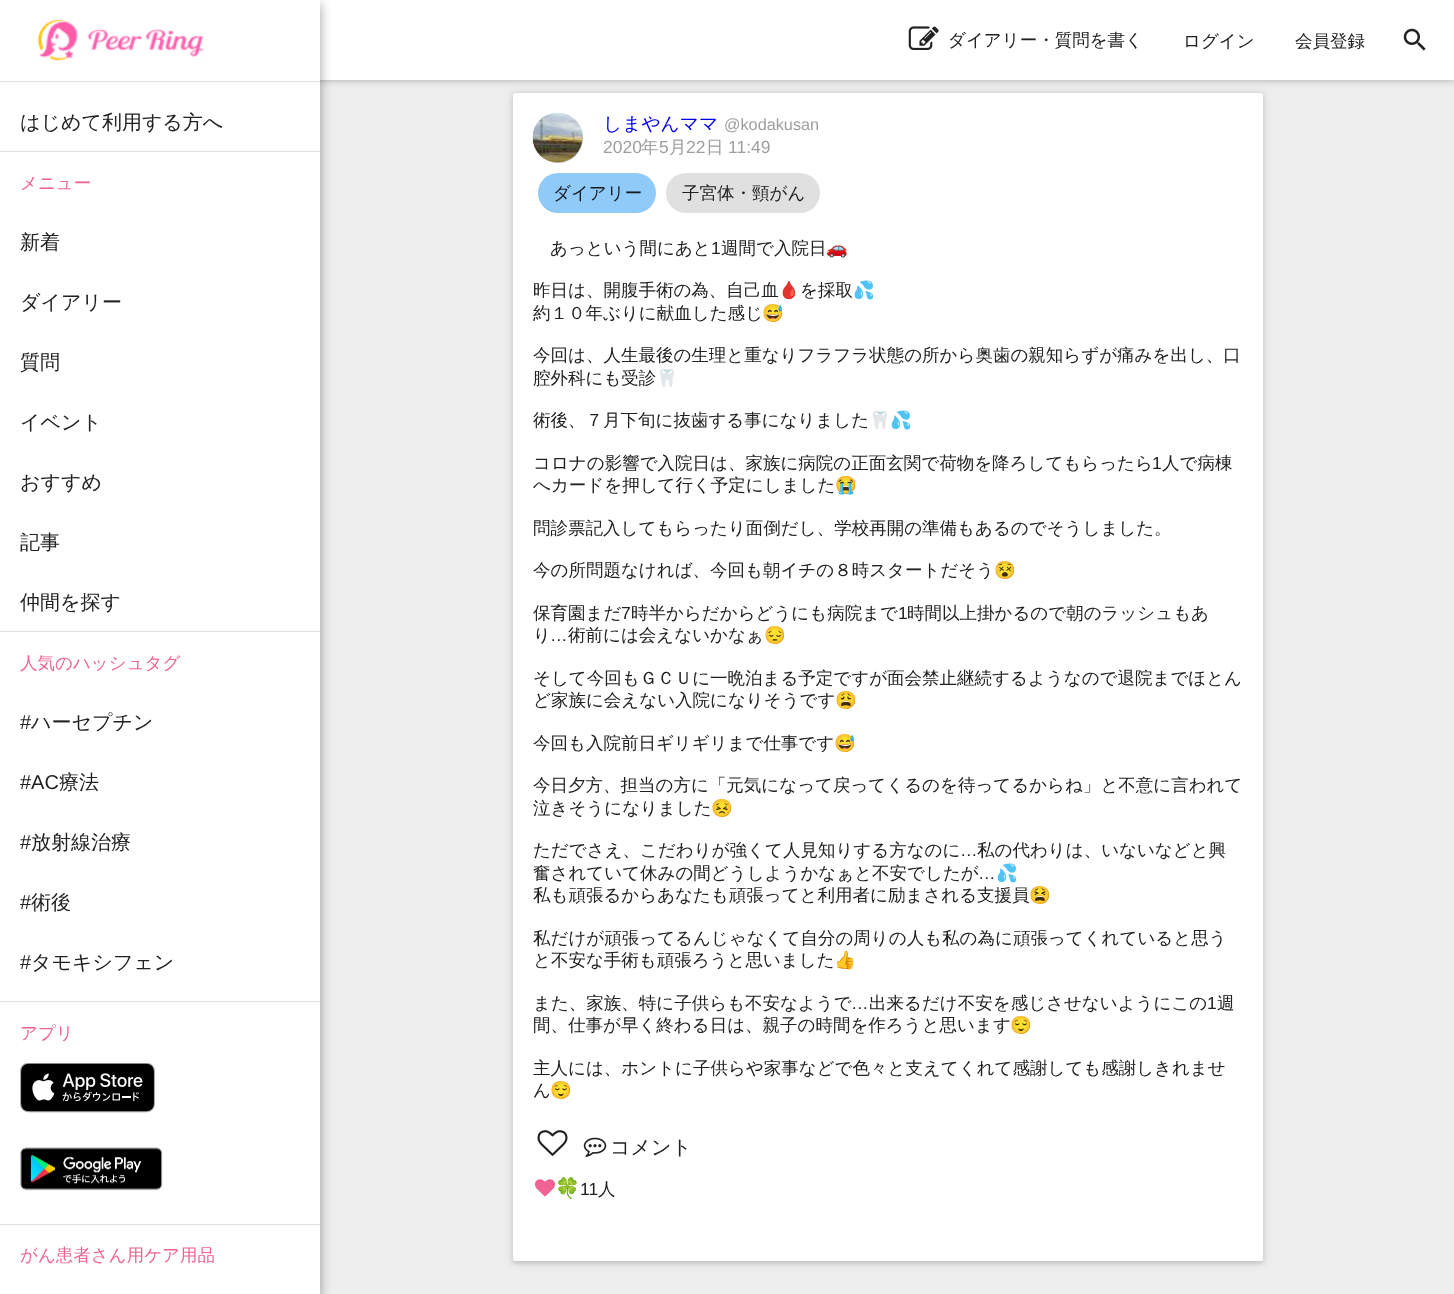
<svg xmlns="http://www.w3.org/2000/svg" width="1454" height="1294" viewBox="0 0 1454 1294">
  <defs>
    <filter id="blur1" x="-50%" y="-200%" width="200%" height="500%"><feGaussianBlur stdDeviation="2.5"/></filter>
    <filter id="blur2" x="-50%" y="-200%" width="200%" height="500%"><feGaussianBlur stdDeviation="4"/></filter>
    <filter id="blur3" x="-50%" y="-200%" width="200%" height="500%"><feGaussianBlur stdDeviation="6"/></filter>
  </defs>
  <rect width="100%" height="100%" fill="#eeeeee"/>
  <rect x="0" y="1" width="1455" height="80" fill="#000000" fill-opacity="0.12" filter="url(#blur1)"/>
  <rect x="513" y="94" width="750" height="1169" rx="2.5" fill="#000000" fill-opacity="0.12" filter="url(#blur1)"/>
  <rect x="513" y="94" width="750" height="1169" rx="2.5" fill="#000000" fill-opacity="0.12" filter="url(#blur2)"/>
  <rect x="513" y="93" width="750" height="1168" rx="2.5" fill="#ffffff"/>
  <rect x="0" y="1" width="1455" height="80" fill="#000000" fill-opacity="0.12" filter="url(#blur2)"/>
  <rect x="320" y="0" width="1134" height="80" fill="#ffffff"/>
  <image x="908" y="26" width="31" height="24" href="img1.png"/>
  <text x="948" y="46" font-family="WenQuanYi Zen Hei" font-size="17.5" font-weight="500" fill="#212121">ダイアリー・質問を書く</text>
  <text x="1183" y="47" font-family="WenQuanYi Zen Hei" font-size="17.5" font-weight="500" fill="#212121">ログイン</text>
  <text x="1295" y="47" font-family="WenQuanYi Zen Hei" font-size="17.5" font-weight="500" fill="#212121">会員登録</text>
  <image x="1403" y="28" width="23" height="23" href="img2.png"/>
  <rect x="0" y="4" width="320" height="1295" fill="#000000" fill-opacity="0.23" filter="url(#blur3)"/>
  <rect x="0" y="4" width="320" height="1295" fill="#000000" fill-opacity="0.16" filter="url(#blur3)"/>
  <rect x="0" y="0" width="320" height="1294" fill="#ffffff"/>
  <image x="37" y="18" width="167" height="43" href="img3.png"/>
  <rect x="0" y="81" width="320" height="1" fill="#e0e0e0"/>
  <text x="20" y="129" font-family="WenQuanYi Zen Hei" font-size="20" font-weight="500" fill="#212121">はじめて利用する方へ</text>
  <rect x="0" y="151" width="320" height="1" fill="#e0e0e0"/>
  <text x="20" y="189" font-family="WenQuanYi Zen Hei" font-size="17.5" font-weight="500" fill="#f06292">メニュー</text>
  <text x="20" y="249" font-family="WenQuanYi Zen Hei" font-size="20" font-weight="500" fill="#212121">新着</text>
  <text x="20" y="309" font-family="WenQuanYi Zen Hei" font-size="20" font-weight="500" fill="#212121">ダイアリー</text>
  <text x="20" y="369" font-family="WenQuanYi Zen Hei" font-size="20" font-weight="500" fill="#212121">質問</text>
  <text x="20" y="429" font-family="WenQuanYi Zen Hei" font-size="20" font-weight="500" fill="#212121">イベント</text>
  <text x="20" y="489" font-family="WenQuanYi Zen Hei" font-size="20" font-weight="500" fill="#212121">おすすめ</text>
  <text x="20" y="549" font-family="WenQuanYi Zen Hei" font-size="20" font-weight="500" fill="#212121">記事</text>
  <text x="20" y="609" font-family="WenQuanYi Zen Hei" font-size="20" font-weight="500" fill="#212121">仲間を探す</text>
  <rect x="0" y="631" width="320" height="1" fill="#e0e0e0"/>
  <text x="20" y="669" font-family="WenQuanYi Zen Hei" font-size="17.5" font-weight="500" fill="#f06292">人気のハッシュタグ</text>
  <text x="20" y="729" font-family="Liberation Sans" font-size="20" fill="#212121">#</text>
  <text x="31" y="729" font-family="WenQuanYi Zen Hei" font-size="20" font-weight="500" fill="#212121">ハーセプチン</text>
  <text x="20" y="789" font-family="Liberation Sans" font-size="20" fill="#212121">#AC</text>
  <text x="59" y="789" font-family="WenQuanYi Zen Hei" font-size="20" font-weight="500" fill="#212121">療法</text>
  <text x="20" y="849" font-family="Liberation Sans" font-size="20" fill="#212121">#</text>
  <text x="31" y="849" font-family="WenQuanYi Zen Hei" font-size="20" font-weight="500" fill="#212121">放射線治療</text>
  <text x="20" y="909" font-family="Liberation Sans" font-size="20" fill="#212121">#</text>
  <text x="31" y="909" font-family="WenQuanYi Zen Hei" font-size="20" font-weight="500" fill="#212121">術後</text>
  <text x="20" y="969" font-family="Liberation Sans" font-size="20" fill="#212121">#</text>
  <text x="31" y="969" font-family="WenQuanYi Zen Hei" font-size="20" font-weight="500" fill="#212121">タモキシフェン</text>
  <rect x="0" y="1001" width="320" height="1" fill="#e0e0e0"/>
  <text x="20" y="1039" font-family="WenQuanYi Zen Hei" font-size="17.5" font-weight="500" fill="#f06292">アプリ</text>
  <image x="20" y="1063" width="135" height="50" href="img4.png"/>
  <image x="20" y="1147" width="143" height="44" href="img5.png"/>
  <rect x="0" y="1224" width="320" height="1" fill="#e0e0e0"/>
  <text x="20" y="1261" font-family="WenQuanYi Zen Hei" font-size="17.5" font-weight="500" fill="#f06292">がん患者さん用ケア用品</text>
  <circle cx="558" cy="138" r="25" fill="#bcbcbc"/>
  <image x="532" y="112" width="51" height="51" href="img6.png"/>
  <text x="603" y="130" font-family="WenQuanYi Zen Hei" font-size="18.75" font-weight="500" fill="#0000ee">しまやんママ</text>
  <text x="724" y="130" font-family="Liberation Sans" font-size="16.25" fill="#9e9e9e">@kodakusan</text>
  <text x="603" y="153" font-family="Liberation Sans" font-size="17.5" fill="#9e9e9e">2020</text>
  <text x="641" y="153" font-family="WenQuanYi Zen Hei" font-size="17.5" font-weight="500" fill="#9e9e9e">年</text>
  <text x="659" y="153" font-family="Liberation Sans" font-size="17.5" fill="#9e9e9e">5</text>
  <text x="669" y="153" font-family="WenQuanYi Zen Hei" font-size="17.5" font-weight="500" fill="#9e9e9e">月</text>
  <text x="686" y="153" font-family="Liberation Sans" font-size="17.5" fill="#9e9e9e">22</text>
  <text x="706" y="153" font-family="WenQuanYi Zen Hei" font-size="17.5" font-weight="500" fill="#9e9e9e">日</text>
  <text x="728" y="153" font-family="Liberation Sans" font-size="17.5" fill="#9e9e9e">11:49</text>
  <rect x="538" y="173" width="118" height="40" rx="20" fill="#90caf9"/>
  <text x="553" y="199" font-family="WenQuanYi Zen Hei" font-size="17.5" font-weight="500" fill="#131a20">ダイアリー</text>
  <rect x="666" y="173" width="154" height="40" rx="20" fill="#e0e0e0"/>
  <text x="682" y="199" font-family="WenQuanYi Zen Hei" font-size="17.5" font-weight="500" fill="#212121">子宮体・頸がん</text>
  <text x="550" y="254" font-family="WenQuanYi Zen Hei" font-size="17.5" font-weight="500" fill="#212121">あっという間にあと</text>
  <text x="711" y="254" font-family="Liberation Sans" font-size="17.5" fill="#212121">1</text>
  <text x="721" y="254" font-family="WenQuanYi Zen Hei" font-size="17.5" font-weight="500" fill="#212121">週間で入院日</text>
  <text x="826" y="254" font-family="Noto Color Emoji" font-size="17.5" fill="#212121">🚗</text>
  <text x="533" y="296" font-family="WenQuanYi Zen Hei" font-size="17.5" font-weight="500" fill="#212121">昨日は、開腹手術の為、自己血</text>
  <text x="778" y="296" font-family="Noto Color Emoji" font-size="17.5" fill="#212121">🩸</text>
  <text x="800" y="296" font-family="WenQuanYi Zen Hei" font-size="17.5" font-weight="500" fill="#212121">を採取</text>
  <text x="853" y="296" font-family="Noto Color Emoji" font-size="17.5" fill="#212121">💦</text>
  <text x="533" y="319" font-family="WenQuanYi Zen Hei" font-size="17.5" font-weight="500" fill="#212121">約１０年ぶりに献血した感じ</text>
  <text x="762" y="319" font-family="Noto Color Emoji" font-size="17.5" fill="#212121">😅</text>
  <text x="533" y="361" font-family="WenQuanYi Zen Hei" font-size="17.5" font-weight="500" fill="#212121">今回は、人生最後の生理と重なりフラフラ状態の所から奥歯の親知らずが痛みを出し、口</text>
  <text x="533" y="384" font-family="WenQuanYi Zen Hei" font-size="17.5" font-weight="500" fill="#212121">腔外科にも受診</text>
  <text x="656" y="384" font-family="Noto Color Emoji" font-size="17.5" fill="#212121">🦷</text>
  <text x="533" y="426" font-family="WenQuanYi Zen Hei" font-size="17.5" font-weight="500" fill="#212121">術後、７月下旬に抜歯する事になりました</text>
  <text x="869" y="426" font-family="Noto Color Emoji" font-size="17.5" fill="#212121">🦷💦</text>
  <text x="533" y="469" font-family="WenQuanYi Zen Hei" font-size="17.5" font-weight="500" fill="#212121">コロナの影響で入院日は、家族に病院の正面玄関で荷物を降ろしてもらったら</text>
  <text x="1152" y="469" font-family="Liberation Sans" font-size="17.5" fill="#212121">1</text>
  <text x="1162" y="469" font-family="WenQuanYi Zen Hei" font-size="17.5" font-weight="500" fill="#212121">人で病棟</text>
  <text x="533" y="491" font-family="WenQuanYi Zen Hei" font-size="17.5" font-weight="500" fill="#212121">へカードを押して行く予定にしました</text>
  <text x="835" y="491" font-family="Noto Color Emoji" font-size="17.5" fill="#212121">😭</text>
  <text x="533" y="534" font-family="WenQuanYi Zen Hei" font-size="17.5" font-weight="500" fill="#212121">問診票記入してもらったり面倒だし、学校再開の準備もあるのでそうしました。</text>
  <text x="533" y="576" font-family="WenQuanYi Zen Hei" font-size="17.5" font-weight="500" fill="#212121">今の所問題なければ、今回も朝イチの８時スタートだそう</text>
  <text x="994" y="576" font-family="Noto Color Emoji" font-size="17.5" fill="#212121">😵</text>
  <text x="533" y="619" font-family="WenQuanYi Zen Hei" font-size="17.5" font-weight="500" fill="#212121">保育園まだ</text>
  <text x="621" y="619" font-family="Liberation Sans" font-size="17.5" fill="#212121">7</text>
  <text x="631" y="619" font-family="WenQuanYi Zen Hei" font-size="17.5" font-weight="500" fill="#212121">時半からだからどうにも病院まで</text>
  <text x="898" y="619" font-family="Liberation Sans" font-size="17.5" fill="#212121">1</text>
  <text x="907" y="619" font-family="WenQuanYi Zen Hei" font-size="17.5" font-weight="500" fill="#212121">時間以上掛かるので朝のラッシュもあ</text>
  <text x="533" y="641" font-family="WenQuanYi Zen Hei" font-size="17.5" font-weight="500" fill="#212121">り</text>
  <text x="550" y="641" font-family="Liberation Sans" font-size="17.5" fill="#212121">…</text>
  <text x="568" y="641" font-family="WenQuanYi Zen Hei" font-size="17.5" font-weight="500" fill="#212121">術前には会えないかなぁ</text>
  <text x="764" y="641" font-family="Noto Color Emoji" font-size="17.5" fill="#212121">😔</text>
  <text x="533" y="684" font-family="WenQuanYi Zen Hei" font-size="17.5" font-weight="500" fill="#212121">そして今回もＧＣＵに一晩泊まる予定ですが面会禁止継続するようなので退院までほとん</text>
  <text x="533" y="706" font-family="WenQuanYi Zen Hei" font-size="17.5" font-weight="500" fill="#212121">ど家族に会えない入院になりそうです</text>
  <text x="835" y="706" font-family="Noto Color Emoji" font-size="17.5" fill="#212121">😩</text>
  <text x="533" y="749" font-family="WenQuanYi Zen Hei" font-size="17.5" font-weight="500" fill="#212121">今回も入院前日ギリギリまで仕事です</text>
  <text x="834" y="749" font-family="Noto Color Emoji" font-size="17.5" fill="#212121">😅</text>
  <text x="533" y="791" font-family="WenQuanYi Zen Hei" font-size="17.5" font-weight="500" fill="#212121">今日夕方、担当の方に「元気になって戻ってくるのを待ってるからね」と不意に言われて</text>
  <text x="533" y="814" font-family="WenQuanYi Zen Hei" font-size="17.5" font-weight="500" fill="#212121">泣きそうになりました</text>
  <text x="711" y="814" font-family="Noto Color Emoji" font-size="17.5" fill="#212121">😣</text>
  <text x="533" y="856" font-family="WenQuanYi Zen Hei" font-size="17.5" font-weight="500" fill="#212121">ただでさえ、こだわりが強くて人見知りする方なのに</text>
  <text x="960" y="856" font-family="Liberation Sans" font-size="17.5" fill="#212121">…</text>
  <text x="977" y="856" font-family="WenQuanYi Zen Hei" font-size="17.5" font-weight="500" fill="#212121">私の代わりは、いないなどと興</text>
  <text x="533" y="879" font-family="WenQuanYi Zen Hei" font-size="17.5" font-weight="500" fill="#212121">奮されていて休みの間どうしようかなぁと不安でしたが</text>
  <text x="978" y="879" font-family="Liberation Sans" font-size="17.5" fill="#212121">…</text>
  <text x="996" y="879" font-family="Noto Color Emoji" font-size="17.5" fill="#212121">💦</text>
  <text x="533" y="901" font-family="WenQuanYi Zen Hei" font-size="17.5" font-weight="500" fill="#212121">私も頑張るからあなたも頑張ってと利用者に励まされる支援員</text>
  <text x="1029" y="901" font-family="Noto Color Emoji" font-size="17.5" fill="#212121">😫</text>
  <text x="533" y="944" font-family="WenQuanYi Zen Hei" font-size="17.5" font-weight="500" fill="#212121">私だけが頑張ってるんじゃなくて自分の周りの人も私の為に頑張ってくれていると思う</text>
  <text x="533" y="966" font-family="WenQuanYi Zen Hei" font-size="17.5" font-weight="500" fill="#212121">と不安な手術も頑張ろうと思いました</text>
  <text x="834" y="966" font-family="Noto Color Emoji" font-size="17.5" fill="#212121">👍</text>
  <text x="533" y="1009" font-family="WenQuanYi Zen Hei" font-size="17.5" font-weight="500" fill="#212121">また、家族、特に子供らも不安なようで</text>
  <text x="851" y="1009" font-family="Liberation Sans" font-size="17.5" fill="#212121">…</text>
  <text x="869" y="1009" font-family="WenQuanYi Zen Hei" font-size="17.5" font-weight="500" fill="#212121">出来るだけ不安を感じさせないようにこの</text>
  <text x="1207" y="1009" font-family="Liberation Sans" font-size="17.5" fill="#212121">1</text>
  <text x="1217" y="1009" font-family="WenQuanYi Zen Hei" font-size="17.5" font-weight="500" fill="#212121">週</text>
  <text x="533" y="1031" font-family="WenQuanYi Zen Hei" font-size="17.5" font-weight="500" fill="#212121">間、仕事が早く終わる日は、親子の時間を作ろうと思います</text>
  <text x="1010" y="1031" font-family="Noto Color Emoji" font-size="17.5" fill="#212121">😌</text>
  <text x="533" y="1074" font-family="WenQuanYi Zen Hei" font-size="17.5" font-weight="500" fill="#212121">主人には、ホントに子供らや家事などで色々と支えてくれて感謝しても感謝しきれませ</text>
  <text x="533" y="1096" font-family="WenQuanYi Zen Hei" font-size="17.5" font-weight="500" fill="#212121">ん</text>
  <text x="550" y="1096" font-family="Noto Color Emoji" font-size="17.5" fill="#212121">😌</text>
  <image x="537" y="1130" width="31" height="26" href="img7.png"/>
  <image x="583" y="1137" width="24" height="20" href="img8.png"/>
  <text x="610" y="1154" font-family="WenQuanYi Zen Hei" font-size="20" font-weight="500" fill="#212121">コメント</text>
  <image x="535" y="1179" width="20" height="18" href="img9.png"/>
  <text x="555" y="1195" font-family="Noto Color Emoji" font-size="20" fill="#4caf50">🍀</text>
  <text x="580" y="1195" font-family="Liberation Sans" font-size="17.5" fill="#212121">11</text>
  <text x="598" y="1195" font-family="WenQuanYi Zen Hei" font-size="17.5" font-weight="500" fill="#212121">人</text>
</svg>
